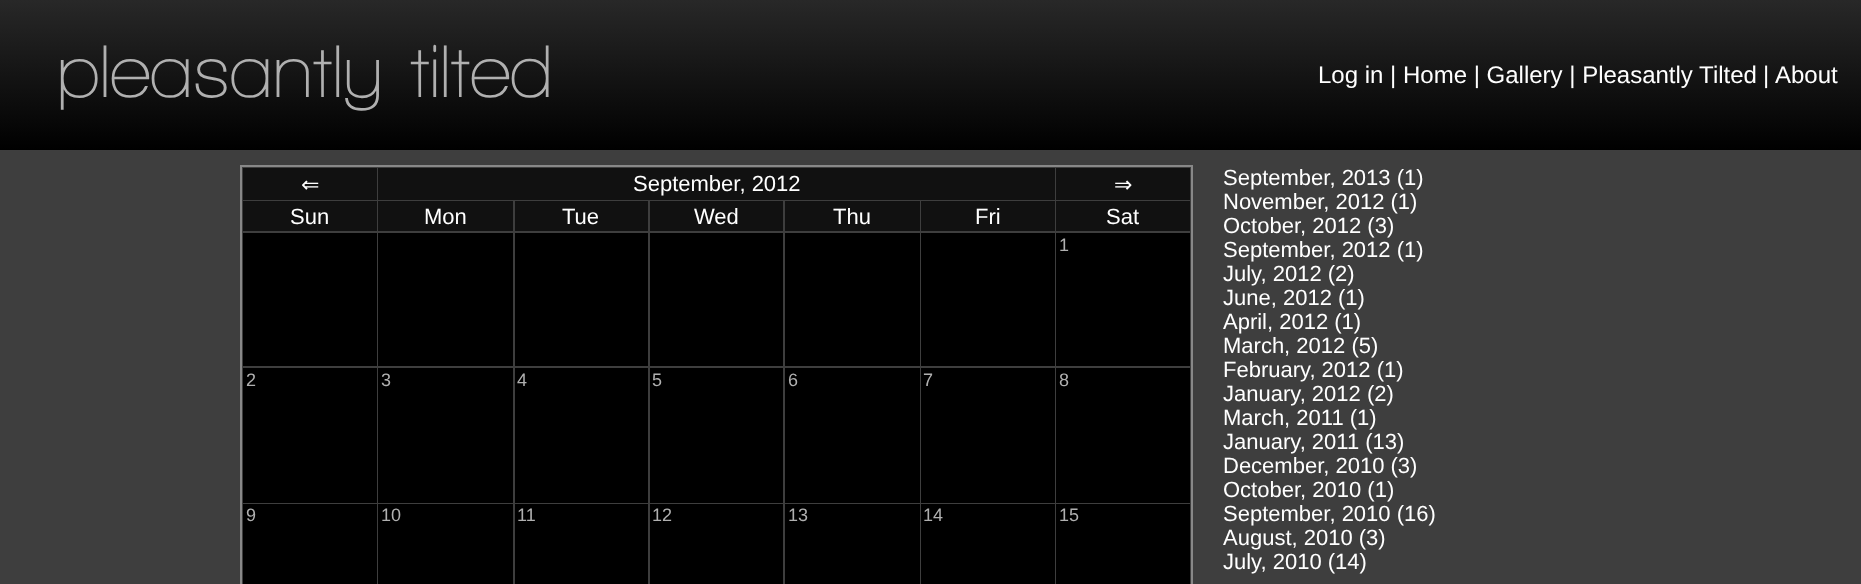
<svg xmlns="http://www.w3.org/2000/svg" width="1861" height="584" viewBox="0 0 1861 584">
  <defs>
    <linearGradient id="g1" gradientUnits="userSpaceOnUse" x1="931" y1="0" x2="931" y2="150"><stop offset="0" stop-color="#282828"/><stop offset="1" stop-color="#000000"/></linearGradient>
  </defs>
  <rect width="100%" height="100%" fill="#3e3e3e"/>
  <rect x="0" y="0" width="1861" height="150" fill="url(#g1)"/>
  <text x="57" y="97" font-family="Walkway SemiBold" font-size="76" font-weight="600" fill="#b0b0b0">pleasantly tilted</text>
  <text x="1318" y="83" font-family="Liberation Sans" font-size="24" fill="#ffffff">Log in | Home | Gallery | Pleasantly Tilted</text>
  <text x="1763" y="83" font-family="Liberation Sans" font-size="24" fill="#ffffff">|</text>
  <text x="1775" y="83" font-family="Liberation Sans" font-size="24" fill="#ffffff">About</text>
  <rect x="241" y="166" width="951" height="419" fill="none" stroke="#888888" stroke-width="2"/>
  <rect x="243" y="168" width="134" height="32" fill="#111111"/>
  <text x="301" y="192" font-family="DejaVu Sans" font-size="22" fill="#ffffff">⇐</text>
  <rect x="378" y="168" width="677" height="32" fill="#111111"/>
  <text x="633" y="191" font-family="Liberation Sans" font-size="22" fill="#ffffff">September, 2012</text>
  <rect x="1056" y="168" width="134" height="32" fill="#111111"/>
  <text x="1114" y="192" font-family="DejaVu Sans" font-size="22" fill="#ffffff">⇒</text>
  <rect x="243" y="201" width="134" height="30" fill="#111111"/>
  <text x="290" y="224" font-family="Liberation Sans" font-size="22" fill="#ffffff">Sun</text>
  <rect x="378" y="201" width="135" height="30" fill="#111111"/>
  <text x="424" y="224" font-family="Liberation Sans" font-size="22" fill="#ffffff">Mon</text>
  <rect x="515" y="201" width="133" height="30" fill="#111111"/>
  <text x="562" y="224" font-family="Liberation Sans" font-size="22" fill="#ffffff">Tue</text>
  <rect x="650" y="201" width="133" height="30" fill="#111111"/>
  <text x="694" y="224" font-family="Liberation Sans" font-size="22" fill="#ffffff">Wed</text>
  <rect x="785" y="201" width="135" height="30" fill="#111111"/>
  <text x="833" y="224" font-family="Liberation Sans" font-size="22" fill="#ffffff">Thu</text>
  <rect x="921" y="201" width="134" height="30" fill="#111111"/>
  <text x="975" y="224" font-family="Liberation Sans" font-size="22" fill="#ffffff">Fri</text>
  <rect x="1056" y="201" width="134" height="30" fill="#111111"/>
  <text x="1106" y="224" font-family="Liberation Sans" font-size="22" fill="#ffffff">Sat</text>
  <rect x="243" y="233" width="134" height="133" fill="#000000"/>
  <rect x="378" y="233" width="135" height="133" fill="#000000"/>
  <rect x="515" y="233" width="133" height="133" fill="#000000"/>
  <rect x="650" y="233" width="133" height="133" fill="#000000"/>
  <rect x="785" y="233" width="135" height="133" fill="#000000"/>
  <rect x="921" y="233" width="134" height="133" fill="#000000"/>
  <rect x="1056" y="233" width="134" height="133" fill="#000000"/>
  <text x="1059" y="251" font-family="Liberation Sans" font-size="18" fill="#b0b0b0">1</text>
  <rect x="243" y="368" width="134" height="135" fill="#000000"/>
  <text x="246" y="386" font-family="Liberation Sans" font-size="18" fill="#b0b0b0">2</text>
  <rect x="378" y="368" width="135" height="135" fill="#000000"/>
  <text x="381" y="386" font-family="Liberation Sans" font-size="18" fill="#b0b0b0">3</text>
  <rect x="515" y="368" width="133" height="135" fill="#000000"/>
  <text x="517" y="386" font-family="Liberation Sans" font-size="18" fill="#b0b0b0">4</text>
  <rect x="650" y="368" width="133" height="135" fill="#000000"/>
  <text x="652" y="386" font-family="Liberation Sans" font-size="18" fill="#b0b0b0">5</text>
  <rect x="785" y="368" width="135" height="135" fill="#000000"/>
  <text x="788" y="386" font-family="Liberation Sans" font-size="18" fill="#b0b0b0">6</text>
  <rect x="921" y="368" width="134" height="135" fill="#000000"/>
  <text x="923" y="386" font-family="Liberation Sans" font-size="18" fill="#b0b0b0">7</text>
  <rect x="1056" y="368" width="134" height="135" fill="#000000"/>
  <text x="1059" y="386" font-family="Liberation Sans" font-size="18" fill="#b0b0b0">8</text>
  <rect x="243" y="504" width="134" height="80" fill="#000000"/>
  <text x="246" y="521" font-family="Liberation Sans" font-size="18" fill="#b0b0b0">9</text>
  <rect x="378" y="504" width="135" height="80" fill="#000000"/>
  <text x="381" y="521" font-family="Liberation Sans" font-size="18" fill="#b0b0b0">10</text>
  <rect x="515" y="504" width="133" height="80" fill="#000000"/>
  <text x="517" y="521" font-family="Liberation Sans" font-size="18" fill="#b0b0b0">11</text>
  <rect x="650" y="504" width="133" height="80" fill="#000000"/>
  <text x="652" y="521" font-family="Liberation Sans" font-size="18" fill="#b0b0b0">12</text>
  <rect x="785" y="504" width="135" height="80" fill="#000000"/>
  <text x="788" y="521" font-family="Liberation Sans" font-size="18" fill="#b0b0b0">13</text>
  <rect x="921" y="504" width="134" height="80" fill="#000000"/>
  <text x="923" y="521" font-family="Liberation Sans" font-size="18" fill="#b0b0b0">14</text>
  <rect x="1056" y="504" width="134" height="80" fill="#000000"/>
  <text x="1059" y="521" font-family="Liberation Sans" font-size="18" fill="#b0b0b0">15</text>
  <text x="1223" y="185" font-family="Liberation Sans" font-size="22" fill="#ffffff">September, 2013 (1)</text>
  <text x="1223" y="209" font-family="Liberation Sans" font-size="22" fill="#ffffff">November, 2012 (1)</text>
  <text x="1223" y="233" font-family="Liberation Sans" font-size="22" fill="#ffffff">October, 2012 (3)</text>
  <text x="1223" y="257" font-family="Liberation Sans" font-size="22" fill="#ffffff">September, 2012 (1)</text>
  <text x="1223" y="281" font-family="Liberation Sans" font-size="22" fill="#ffffff">July, 2012 (2)</text>
  <text x="1223" y="305" font-family="Liberation Sans" font-size="22" fill="#ffffff">June, 2012 (1)</text>
  <text x="1223" y="329" font-family="Liberation Sans" font-size="22" fill="#ffffff">April, 2012 (1)</text>
  <text x="1223" y="353" font-family="Liberation Sans" font-size="22" fill="#ffffff">March, 2012 (5)</text>
  <text x="1223" y="377" font-family="Liberation Sans" font-size="22" fill="#ffffff">February, 2012 (1)</text>
  <text x="1223" y="401" font-family="Liberation Sans" font-size="22" fill="#ffffff">January, 2012 (2)</text>
  <text x="1223" y="425" font-family="Liberation Sans" font-size="22" fill="#ffffff">March, 2011 (1)</text>
  <text x="1223" y="449" font-family="Liberation Sans" font-size="22" fill="#ffffff">January, 2011 (13)</text>
  <text x="1223" y="473" font-family="Liberation Sans" font-size="22" fill="#ffffff">December, 2010 (3)</text>
  <text x="1223" y="497" font-family="Liberation Sans" font-size="22" fill="#ffffff">October, 2010 (1)</text>
  <text x="1223" y="521" font-family="Liberation Sans" font-size="22" fill="#ffffff">September, 2010 (16)</text>
  <text x="1223" y="545" font-family="Liberation Sans" font-size="22" fill="#ffffff">August, 2010 (3)</text>
  <text x="1223" y="569" font-family="Liberation Sans" font-size="22" fill="#ffffff">July, 2010 (14)</text>
</svg>
